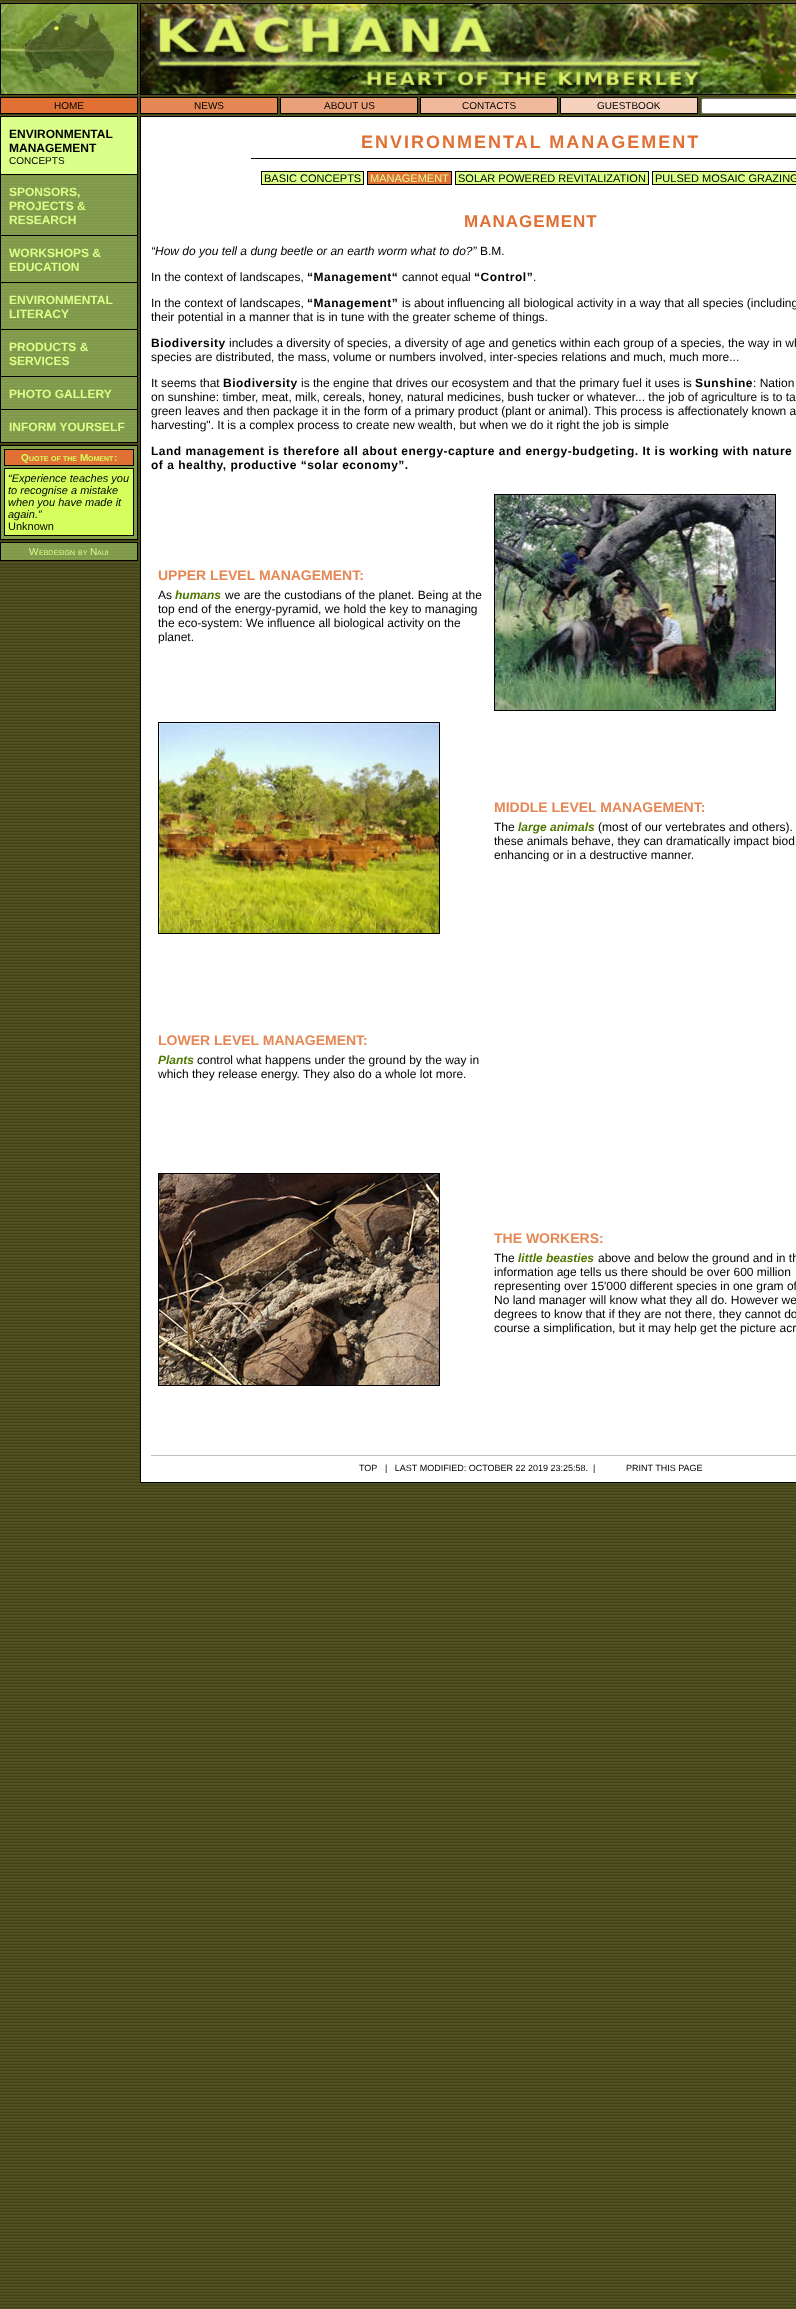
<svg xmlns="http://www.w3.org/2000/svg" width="796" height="2309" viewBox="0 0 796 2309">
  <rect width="100%" height="100%" fill="#ffffff"/>
  <image x="0" y="0" width="796" height="2309" href="img1.png"/>
  <image x="1" y="4" width="136" height="90" href="img2.png"/>
  <rect x="0.5" y="3.5" width="137" height="91" fill="none" stroke="#000000"/>
  <image x="141" y="4" width="655" height="90" href="img3.png"/>
  <rect x="140.5" y="3.5" width="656" height="91" fill="none" stroke="#000000"/>
  <rect x="0.5" y="97.5" width="137" height="16" fill="#e07034" stroke="#000000"/>
  <text x="54" y="109" font-family="Liberation Sans" font-size="10" fill="#000000">HOME</text>
  <rect x="140.5" y="97.5" width="137" height="16" fill="#e58856" stroke="#000000"/>
  <text x="194" y="109" font-family="Liberation Sans" font-size="10" fill="#000000">NEWS</text>
  <rect x="280.5" y="97.5" width="137" height="16" fill="#eaa079" stroke="#000000"/>
  <text x="324" y="109" font-family="Liberation Sans" font-size="10" fill="#000000">ABOUT US</text>
  <rect x="420.5" y="97.5" width="137" height="16" fill="#f0b99b" stroke="#000000"/>
  <text x="462" y="109" font-family="Liberation Sans" font-size="10" fill="#000000">CONTACTS</text>
  <rect x="560.5" y="97.5" width="137" height="16" fill="#f5d1be" stroke="#000000"/>
  <text x="597" y="109" font-family="Liberation Sans" font-size="10" fill="#000000">GUESTBOOK</text>
  <rect x="701.5" y="98.5" width="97" height="15" rx="1.5" fill="#ffffff" stroke="#767676"/>
  <image x="1" y="175" width="136" height="267" href="img4.png"/>
  <rect x="0" y="116" width="138" height="1" fill="#000000"/>
  <rect x="137" y="116" width="1" height="327" fill="#000000"/>
  <rect x="0" y="116" width="1" height="327" fill="#000000"/>
  <rect x="1" y="117" width="136" height="57" fill="#dbff88"/>
  <rect x="1" y="174" width="136" height="1" fill="#000000"/>
  <text x="9" y="138" font-family="Liberation Sans" font-size="12" font-weight="bold" fill="#000000">ENVIRONMENTAL</text>
  <text x="9" y="152" font-family="Liberation Sans" font-size="12" font-weight="bold" fill="#000000">MANAGEMENT</text>
  <text x="9" y="164" font-family="Liberation Sans" font-size="10" fill="#000000">CONCEPTS</text>
  <rect x="1" y="235" width="136" height="1" fill="#000000"/>
  <text x="9" y="196" font-family="Liberation Sans" font-size="12" font-weight="bold" fill="#dbff88">SPONSORS,</text>
  <text x="9" y="210" font-family="Liberation Sans" font-size="12" font-weight="bold" fill="#dbff88">PROJECTS &amp;</text>
  <text x="9" y="224" font-family="Liberation Sans" font-size="12" font-weight="bold" fill="#dbff88">RESEARCH</text>
  <rect x="1" y="282" width="136" height="1" fill="#000000"/>
  <text x="9" y="257" font-family="Liberation Sans" font-size="12" font-weight="bold" fill="#dbff88">WORKSHOPS &amp;</text>
  <text x="9" y="271" font-family="Liberation Sans" font-size="12" font-weight="bold" fill="#dbff88">EDUCATION</text>
  <rect x="1" y="329" width="136" height="1" fill="#000000"/>
  <text x="9" y="304" font-family="Liberation Sans" font-size="12" font-weight="bold" fill="#dbff88">ENVIRONMENTAL</text>
  <text x="9" y="318" font-family="Liberation Sans" font-size="12" font-weight="bold" fill="#dbff88">LITERACY</text>
  <rect x="1" y="376" width="136" height="1" fill="#000000"/>
  <text x="9" y="351" font-family="Liberation Sans" font-size="12" font-weight="bold" fill="#dbff88">PRODUCTS &amp;</text>
  <text x="9" y="365" font-family="Liberation Sans" font-size="12" font-weight="bold" fill="#dbff88">SERVICES</text>
  <rect x="1" y="409" width="136" height="1" fill="#000000"/>
  <text x="9" y="398" font-family="Liberation Sans" font-size="12" font-weight="bold" fill="#dbff88">PHOTO GALLERY</text>
  <rect x="1" y="442" width="136" height="1" fill="#000000"/>
  <text x="9" y="431" font-family="Liberation Sans" font-size="12" font-weight="bold" fill="#dbff88">INFORM YOURSELF</text>
  <rect x="140.5" y="116.5" width="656" height="1366" fill="#ffffff" stroke="#000000"/>
  <rect x="251" y="158" width="545" height="1" fill="#000000"/>
  <text x="361" y="148" font-family="Liberation Sans" font-size="18" font-weight="bold" letter-spacing="2" fill="#e07034">ENVIRONMENTAL MANAGEMENT</text>
  <rect x="261.5" y="171.5" width="102" height="13" fill="#dbff88" stroke="#000000"/>
  <text x="264" y="182" font-family="Liberation Sans" font-size="11" fill="#000000">BASIC CONCEPTS</text>
  <rect x="367.5" y="171.5" width="84" height="13" fill="#e07034" stroke="#000000"/>
  <text x="370" y="182" font-family="Liberation Sans" font-size="11" fill="#e2ff9b">MANAGEMENT</text>
  <rect x="455.5" y="171.5" width="193" height="13" fill="#dbff88" stroke="#000000"/>
  <text x="458" y="182" font-family="Liberation Sans" font-size="11" fill="#000000">SOLAR POWERED REVITALIZATION</text>
  <rect x="652.5" y="171.5" width="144" height="13" fill="#dbff88" stroke="#000000"/>
  <text x="655" y="182" font-family="Liberation Sans" font-size="11" fill="#000000">PULSED MOSAIC GRAZING</text>
  <text x="464" y="227" font-family="Liberation Sans" font-size="17" font-weight="bold" letter-spacing="1" fill="#e07034">MANAGEMENT</text>
  <text x="151" y="255" font-family="Liberation Sans" font-size="12" font-style="italic" fill="#000000">“How do you tell a dung beetle or an earth worm what to do?”</text>
  <text x="480" y="255" font-family="Liberation Sans" font-size="12" fill="#000000">B.M.</text>
  <text x="151" y="281" font-family="Liberation Sans" font-size="12" fill="#000000">In the context of landscapes,</text>
  <text x="307" y="281" font-family="Liberation Sans" font-size="12" font-weight="bold" letter-spacing="0.5" fill="#000000">“Management“</text>
  <text x="402" y="281" font-family="Liberation Sans" font-size="12" fill="#000000">cannot equal</text>
  <text x="474" y="281" font-family="Liberation Sans" font-size="12" font-weight="bold" letter-spacing="0.5" fill="#000000">“Control”</text>
  <text x="533" y="281" font-family="Liberation Sans" font-size="12" fill="#000000">.</text>
  <text x="151" y="307" font-family="Liberation Sans" font-size="12" fill="#000000">In the context of landscapes,</text>
  <text x="307" y="307" font-family="Liberation Sans" font-size="12" font-weight="bold" letter-spacing="0.5" fill="#000000">“Management”</text>
  <text x="402" y="307" font-family="Liberation Sans" font-size="12" fill="#000000">is about influencing all biological activity in a way that all species (including</text>
  <text x="151" y="321" font-family="Liberation Sans" font-size="12" fill="#000000">their potential in a manner that is in tune with the greater scheme of things.</text>
  <text x="151" y="347" font-family="Liberation Sans" font-size="12" font-weight="bold" letter-spacing="0.5" fill="#000000">Biodiversity</text>
  <text x="229" y="347" font-family="Liberation Sans" font-size="12" fill="#000000">includes a diversity of species, a diversity of age and genetics within each group of a species, the way in wh</text>
  <text x="151" y="361" font-family="Liberation Sans" font-size="12" fill="#000000">species are distributed, the mass, volume or numbers involved, inter-species relations and much, much more...</text>
  <text x="151" y="387" font-family="Liberation Sans" font-size="12" fill="#000000">It seems that</text>
  <text x="223" y="387" font-family="Liberation Sans" font-size="12" font-weight="bold" letter-spacing="0.5" fill="#000000">Biodiversity</text>
  <text x="301" y="387" font-family="Liberation Sans" font-size="12" fill="#000000">is the engine that drives our ecosystem and that the primary fuel it uses is</text>
  <text x="695" y="387" font-family="Liberation Sans" font-size="12" font-weight="bold" letter-spacing="0.5" fill="#000000">Sunshine</text>
  <text x="753" y="387" font-family="Liberation Sans" font-size="12" fill="#000000">: Nation</text>
  <text x="151" y="401" font-family="Liberation Sans" font-size="12" fill="#000000">on sunshine: timber, meat, milk, cereals, honey, natural medicines, bush tucker or whatever... the job of agriculture is to ta</text>
  <text x="151" y="415" font-family="Liberation Sans" font-size="12" fill="#000000">green leaves and then package it in the form of a primary product (plant or animal). This process is affectionately known a</text>
  <text x="151" y="429" font-family="Liberation Sans" font-size="12" fill="#000000">harvesting". It is a complex process to create new wealth, but when we do it right the job is simple</text>
  <text x="151" y="455" font-family="Liberation Sans" font-size="12" font-weight="bold" letter-spacing="0.5" fill="#000000">Land management is therefore all about energy-capture and energy-budgeting. It is working with nature</text>
  <text x="151" y="469" font-family="Liberation Sans" font-size="12" font-weight="bold" letter-spacing="0.5" fill="#000000">of a healthy, productive “solar economy”.</text>
  <text x="158" y="580" font-family="Liberation Sans" font-size="14" font-weight="bold" fill="#e58856">UPPER LEVEL MANAGEMENT:</text>
  <text x="158" y="599" font-family="Liberation Sans" font-size="12" fill="#000000">As</text>
  <text x="175" y="599" font-family="Liberation Sans" font-size="12" font-weight="bold" font-style="italic" fill="#4f7700">humans</text>
  <text x="225" y="599" font-family="Liberation Sans" font-size="12" fill="#000000">we are the custodians of the planet. Being at the</text>
  <text x="158" y="613" font-family="Liberation Sans" font-size="12" fill="#000000">top end of the energy-pyramid, we hold the key to managing</text>
  <text x="158" y="627" font-family="Liberation Sans" font-size="12" fill="#000000">the eco-system: We influence all biological activity on the</text>
  <text x="158" y="641" font-family="Liberation Sans" font-size="12" fill="#000000">planet.</text>
  <rect x="494.5" y="494.5" width="281" height="216" fill="none" stroke="#000000"/>
  <image x="495" y="495" width="280" height="215" href="img5.png"/>
  <rect x="158.5" y="722.5" width="281" height="211" fill="none" stroke="#000000"/>
  <image x="159" y="723" width="280" height="210" href="img6.png"/>
  <text x="494" y="812" font-family="Liberation Sans" font-size="14" font-weight="bold" fill="#e58856">MIDDLE LEVEL MANAGEMENT:</text>
  <text x="494" y="831" font-family="Liberation Sans" font-size="12" fill="#000000">The</text>
  <text x="518" y="831" font-family="Liberation Sans" font-size="12" font-weight="bold" font-style="italic" fill="#4f7700">large animals</text>
  <text x="598" y="831" font-family="Liberation Sans" font-size="12" fill="#000000">(most of our vertebrates and others).</text>
  <text x="494" y="845" font-family="Liberation Sans" font-size="12" fill="#000000">these animals behave, they can dramatically impact biod</text>
  <text x="494" y="859" font-family="Liberation Sans" font-size="12" fill="#000000">enhancing or in a destructive manner.</text>
  <text x="158" y="1045" font-family="Liberation Sans" font-size="14" font-weight="bold" fill="#e58856">LOWER LEVEL MANAGEMENT:</text>
  <text x="158" y="1064" font-family="Liberation Sans" font-size="12" font-weight="bold" font-style="italic" fill="#4f7700">Plants</text>
  <text x="197" y="1064" font-family="Liberation Sans" font-size="12" fill="#000000">control what happens under the ground by the way in</text>
  <text x="158" y="1078" font-family="Liberation Sans" font-size="12" fill="#000000">which they release energy. They also do a whole lot more.</text>
  <rect x="158.5" y="1173.5" width="281" height="212" fill="none" stroke="#000000"/>
  <image x="159" y="1174" width="280" height="211" href="img7.png"/>
  <text x="494" y="1243" font-family="Liberation Sans" font-size="14" font-weight="bold" fill="#e58856">THE WORKERS:</text>
  <text x="494" y="1262" font-family="Liberation Sans" font-size="12" fill="#000000">The</text>
  <text x="518" y="1262" font-family="Liberation Sans" font-size="12" font-weight="bold" font-style="italic" fill="#4f7700">little beasties</text>
  <text x="598" y="1262" font-family="Liberation Sans" font-size="12" fill="#000000">above and below the ground and in th</text>
  <text x="494" y="1276" font-family="Liberation Sans" font-size="12" fill="#000000">information age tells us there should be over 600 million</text>
  <text x="494" y="1290" font-family="Liberation Sans" font-size="12" fill="#000000">representing over 15'000 different species in one gram of</text>
  <text x="494" y="1304" font-family="Liberation Sans" font-size="12" fill="#000000">No land manager will know what they all do. However we</text>
  <text x="494" y="1318" font-family="Liberation Sans" font-size="12" fill="#000000">degrees to know that if they are not there, they cannot do</text>
  <text x="494" y="1332" font-family="Liberation Sans" font-size="12" fill="#000000">course a simplification, but it may help get the picture acr</text>
  <rect x="151" y="1455" width="645" height="1" fill="#c0c0c0"/>
  <text x="359" y="1471" font-family="Liberation Sans" font-size="9" fill="#000000">TOP</text>
  <text x="385" y="1471" font-family="Liberation Sans" font-size="9" fill="#000000" xml:space="preserve">|   LAST MODIFIED: OCTOBER 22 2019 23:25:58.  |</text>
  <text x="626" y="1471" font-family="Liberation Sans" font-size="9" fill="#000000">PRINT THIS PAGE</text>
  <rect x="0.5" y="445.5" width="137" height="94" fill="#829e48" stroke="#000000"/>
  <rect x="4.5" y="449.5" width="129" height="16" fill="#e07034" stroke="#000000"/>
  <text x="21" y="461" font-family="Liberation Sans" font-size="10" font-weight="bold" fill="#d6ff5d">Q</text>
  <text x="29" y="461" font-family="Liberation Sans" font-size="7" font-weight="bold" fill="#d6ff5d">UOTE</text>
  <text x="51" y="461" font-family="Liberation Sans" font-size="7" font-weight="bold" fill="#d6ff5d">OF</text>
  <text x="63" y="461" font-family="Liberation Sans" font-size="7" font-weight="bold" fill="#d6ff5d">THE</text>
  <text x="80" y="461" font-family="Liberation Sans" font-size="10" font-weight="bold" fill="#d6ff5d">M</text>
  <text x="88" y="461" font-family="Liberation Sans" font-size="7" font-weight="bold" fill="#d6ff5d">OMENT</text>
  <text x="114" y="461" font-family="Liberation Sans" font-size="10" font-weight="bold" fill="#d6ff5d">:</text>
  <rect x="4.5" y="468.5" width="129" height="67" fill="#d6ff5d" stroke="#000000"/>
  <text x="8" y="482" font-family="Liberation Sans" font-size="11" font-style="italic" fill="#000000">“Experience teaches you</text>
  <text x="8" y="494" font-family="Liberation Sans" font-size="11" font-style="italic" fill="#000000">to recognise a mistake</text>
  <text x="8" y="506" font-family="Liberation Sans" font-size="11" font-style="italic" fill="#000000">when you have made it</text>
  <text x="8" y="518" font-family="Liberation Sans" font-size="11" font-style="italic" fill="#000000">again.”</text>
  <text x="8" y="530" font-family="Liberation Sans" font-size="11" fill="#000000">Unknown</text>
  <image x="1" y="543" width="136" height="17" href="img8.png"/>
  <rect x="0.5" y="542.5" width="137" height="18" fill="none" stroke="#000000"/>
  <text x="29" y="555" font-family="Liberation Sans" font-size="10" fill="#dbff88">W</text>
  <text x="39" y="555" font-family="Liberation Sans" font-size="7" fill="#dbff88">EBDESIGN</text>
  <text x="78" y="555" font-family="Liberation Sans" font-size="7" fill="#dbff88">BY</text>
  <text x="90" y="555" font-family="Liberation Sans" font-size="10" fill="#dbff88">N</text>
  <text x="97" y="555" font-family="Liberation Sans" font-size="7" fill="#dbff88">AUI</text>
</svg>
